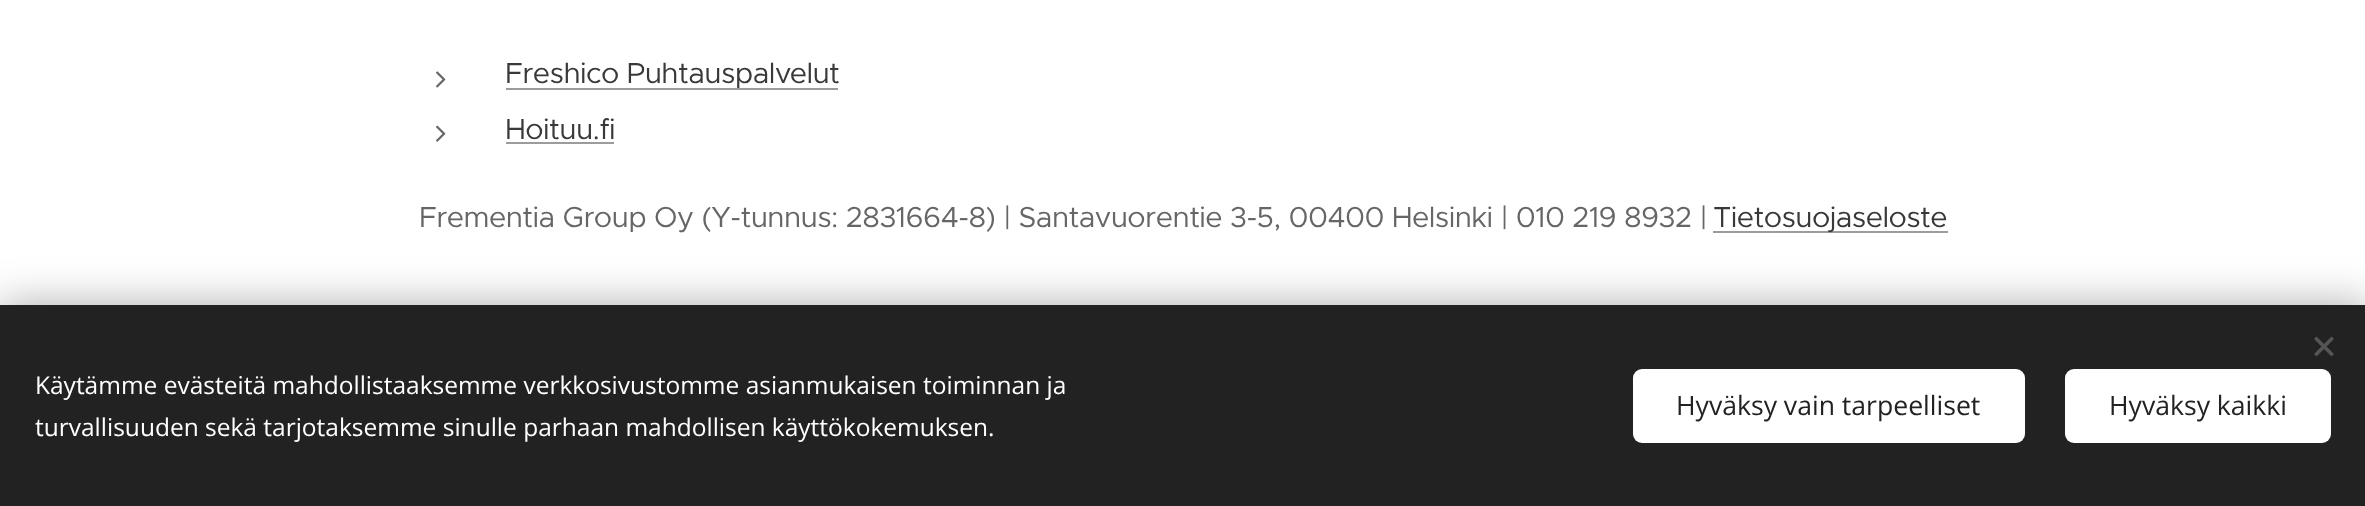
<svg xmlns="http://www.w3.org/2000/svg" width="2365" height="506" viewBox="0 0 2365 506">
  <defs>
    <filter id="blur1" x="-50%" y="-200%" width="200%" height="500%"><feGaussianBlur stdDeviation="22"/></filter>
  </defs>
  <rect width="100%" height="100%" fill="#ffffff"/>
  <image x="436" y="71" width="10" height="17" href="img1.png"/>
  <text x="505" y="83" font-family="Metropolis" font-size="29.05" letter-spacing="-0.55" fill="#393939">Freshico Puhtauspalvelut</text>
  <rect x="506" y="88" width="332" height="2" fill="#9c9c9c"/>
  <image x="436" y="125" width="10" height="17" href="img2.png"/>
  <text x="505" y="139" font-family="Metropolis" font-size="29.05" letter-spacing="-0.55" fill="#393939">Hoituu.fi</text>
  <rect x="506" y="142" width="108" height="2" fill="#9c9c9c"/>
  <text x="419" y="227" font-family="Metropolis" font-size="29.05" letter-spacing="-0.55" fill="#666666">Frementia Group Oy (Y-tunnus: 2831664-8) | Santavuorentie 3-5, 00400 Helsinki | 010 219 8932 |</text>
  <rect x="1713" y="231" width="235" height="2" fill="#9c9c9c"/>
  <text x="1713" y="227" font-family="Metropolis" font-size="29.05" letter-spacing="-0.55" fill="#393939">Tietosuojaseloste</text>
  <rect x="0" y="305" width="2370" height="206" fill="#000000" fill-opacity="0.33" filter="url(#blur1)"/>
  <rect x="0" y="305" width="2365" height="201" fill="#222222"/>
  <path d="M2314 354L2331.5 336.5L2334 339L2316.5 356.5Z" fill="#555555"/>
  <path d="M2316.5 336.5L2334 354L2331.5 356.5L2314 339Z" fill="#555555"/>
  <text x="35" y="394" font-family="Open Sans" font-size="24.5" fill="#ffffff">Käytämme evästeitä mahdollistaaksemme verkkosivustomme asianmukaisen toiminnan ja</text>
  <text x="35" y="436" font-family="Open Sans" font-size="24.5" fill="#ffffff">turvallisuuden sekä tarjotaksemme sinulle parhaan mahdollisen käyttökokemuksen.</text>
  <rect x="1633" y="369" width="392" height="74" rx="9" fill="#ffffff"/>
  <text x="1676" y="415" font-family="Open Sans" font-size="26.6" fill="#222222">Hyväksy vain tarpeelliset</text>
  <rect x="2065" y="369" width="266" height="74" rx="9" fill="#ffffff"/>
  <text x="2109" y="415" font-family="Open Sans" font-size="26.6" fill="#222222">Hyväksy kaikki</text>
</svg>
